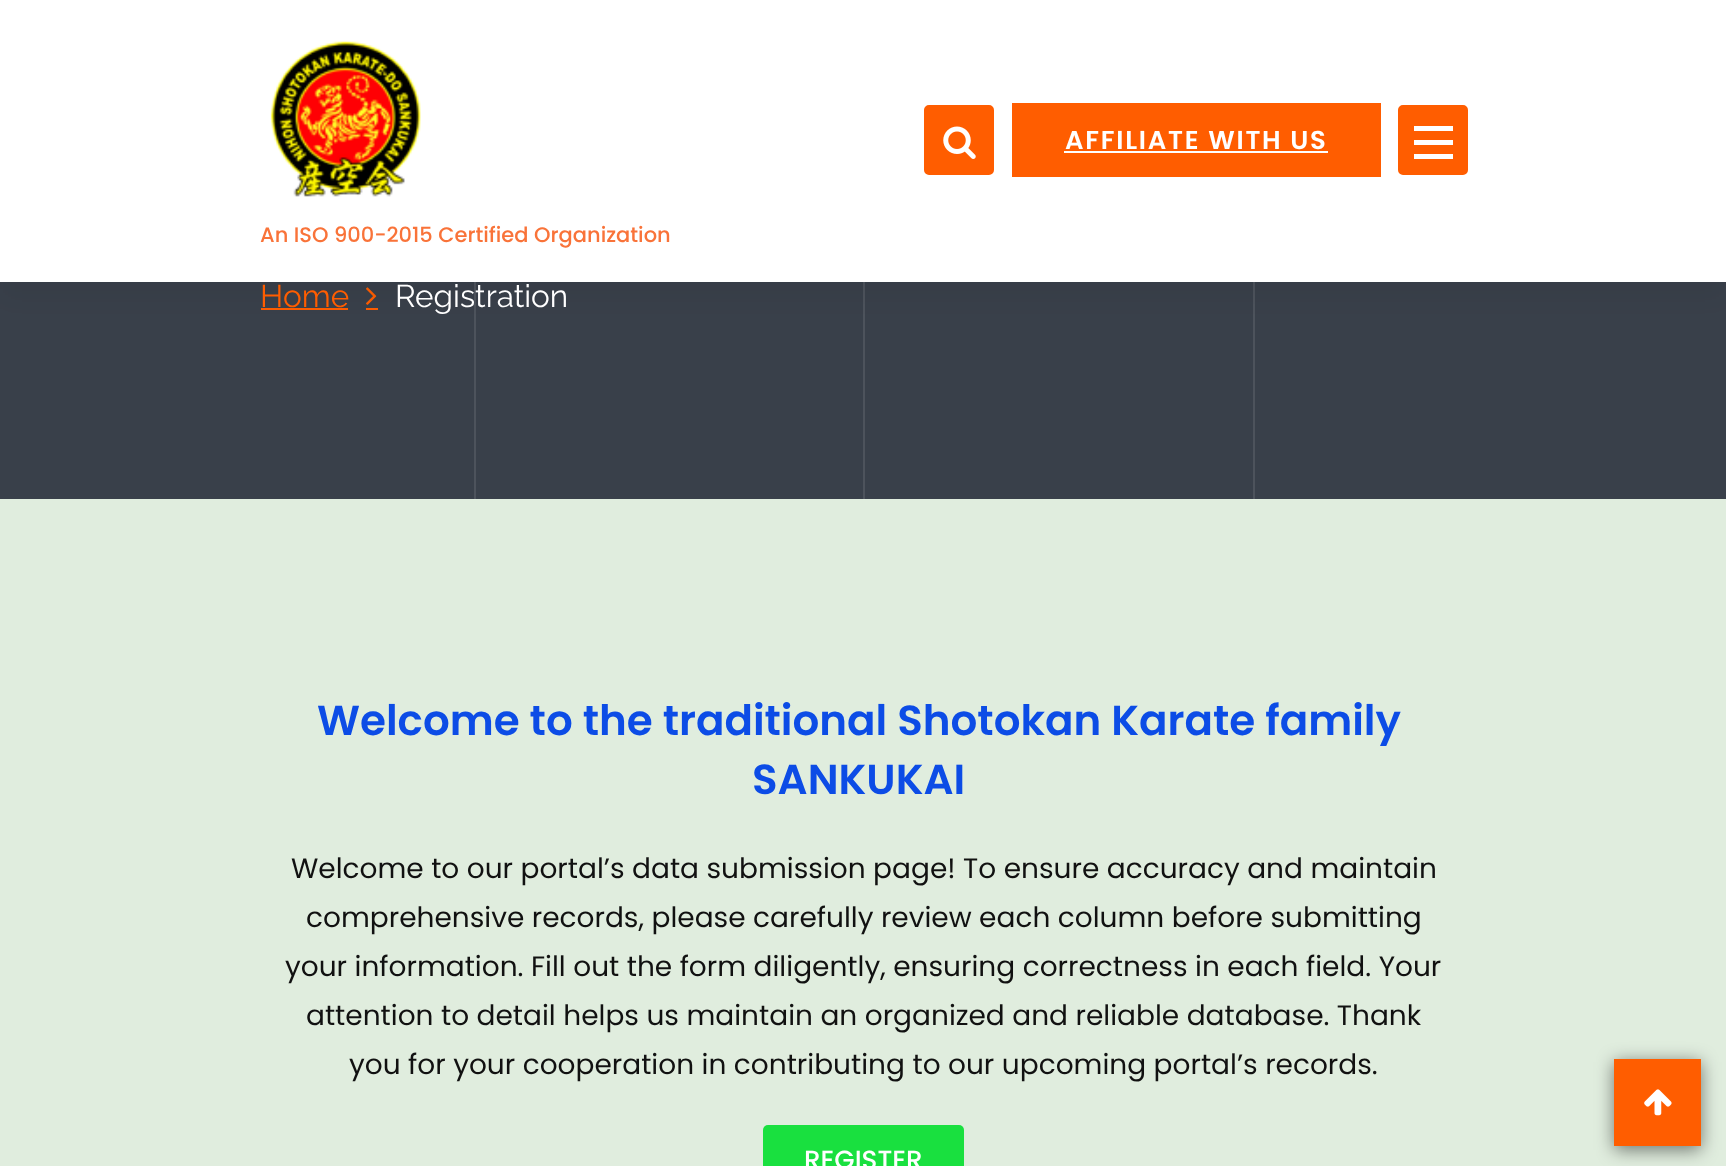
<svg xmlns="http://www.w3.org/2000/svg" width="1726" height="1166" viewBox="0 0 1726 1166">
  <defs>
    <filter id="blur1" x="-50%" y="-200%" width="200%" height="500%"><feGaussianBlur stdDeviation="13"/></filter>
    <filter id="blur2" x="-50%" y="-200%" width="200%" height="500%"><feGaussianBlur stdDeviation="9"/></filter>
  </defs>
  <rect width="100%" height="100%" fill="#e0edde"/>
  <rect x="0" y="282" width="1726" height="217" fill="#39404a"/>
  <rect x="261" y="308" width="87" height="2" fill="#ff5d00"/>
  <rect x="366" y="308" width="12" height="2" fill="#ff5d00"/>
  <image x="366" y="287" width="11" height="18" href="img3.png"/>
  <rect x="474" y="282" width="2" height="217" fill="#4d535c"/>
  <rect x="863" y="282" width="2" height="217" fill="#4d535c"/>
  <rect x="1253" y="282" width="2" height="217" fill="#4d535c"/>
  <rect x="0" y="16" width="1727" height="283" fill="#000000" fill-opacity="0.05" filter="url(#blur1)"/>
  <rect x="0" y="0" width="1726" height="282" fill="#ffffff"/>
  <rect x="925" y="106" width="68" height="68" rx="4" fill="#ff5d00" stroke="#ff5d00" stroke-width="2"/>
  <image x="943" y="126" width="33" height="33" href="img1.png"/>
  <rect x="1012" y="103" width="369" height="74" fill="#ff5d00"/>
  <text x="1065" y="149" font-family="Poppins" font-size="25.9" font-weight="600" letter-spacing="1.75" fill="#ffffff">AFFILIATE WITH US</text>
  <rect x="1064" y="151" width="264" height="2" fill="#ffffff"/>
  <rect x="1399" y="106" width="68" height="68" rx="4" fill="#ff5d00" stroke="#ff5d00" stroke-width="2"/>
  <rect x="1414" y="126" width="39" height="5" fill="#ffffff"/>
  <rect x="1414" y="140" width="39" height="5" fill="#ffffff"/>
  <rect x="1414" y="154" width="39" height="5" fill="#ffffff"/>
  <image x="270" y="41" width="151" height="156" href="img2.png"/>
  <text x="260" y="242" font-family="Poppins" font-size="21" font-weight="500" fill="#f97339">An ISO 900-2015 Certified Organization</text>
  <text x="260" y="307" font-family="Raleway" font-size="31.5" fill="#ff5d00">Home</text>
  <text x="395" y="307" font-family="Raleway" font-size="31.5" fill="#ffffff">Registration</text>
  <text x="317" y="735" font-family="Poppins" font-size="42" font-weight="600" fill="#0c4ce6">Welcome to the traditional Shotokan Karate family</text>
  <text x="752" y="794" font-family="Poppins" font-size="42" font-weight="600" fill="#0c4ce6">SANKUKAI</text>
  <text x="291" y="878" font-family="Poppins" font-size="28" fill="#111111">Welcome to our portal’s data submission page! To ensure accuracy and maintain</text>
  <text x="306" y="927" font-family="Poppins" font-size="28" fill="#111111">comprehensive records, please carefully review each column before submitting</text>
  <text x="285" y="976" font-family="Poppins" font-size="28" fill="#111111">your information. Fill out the form diligently, ensuring correctness in each field. Your</text>
  <text x="306" y="1025" font-family="Poppins" font-size="28" fill="#111111">attention to detail helps us maintain an organized and reliable database. Thank</text>
  <text x="349" y="1074" font-family="Poppins" font-size="28" fill="#111111">you for your cooperation in contributing to our upcoming portal’s records.</text>
  <rect x="763" y="1125" width="201" height="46" rx="5" fill="#19e03f"/>
  <text x="804" y="1169" font-family="Poppins" font-size="26.25" font-weight="500" fill="#ffffff">REGISTER</text>
  <rect x="1614" y="1062" width="87" height="88" fill="#000000" fill-opacity="0.5" filter="url(#blur2)"/>
  <rect x="1614" y="1059" width="87" height="87" fill="#ff5d00"/>
  <image x="1644" y="1089" width="28" height="27" href="img4.png"/>
</svg>
